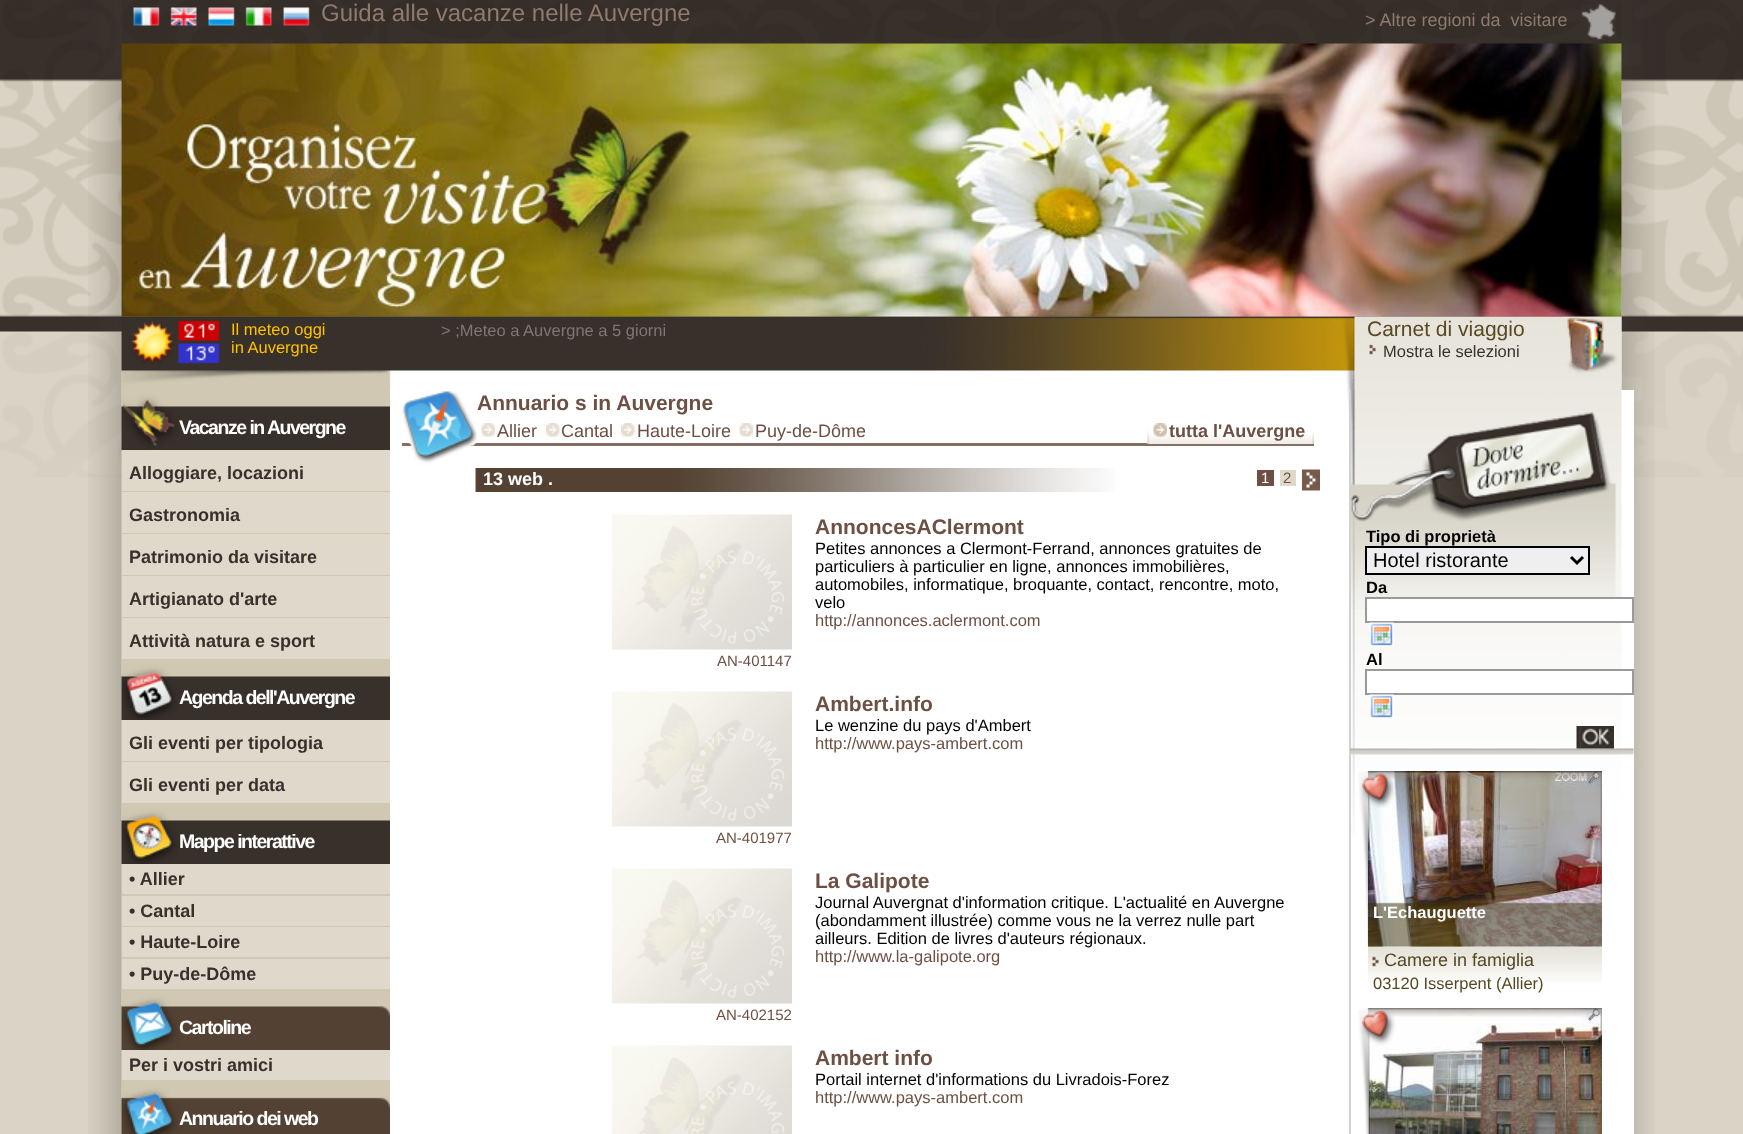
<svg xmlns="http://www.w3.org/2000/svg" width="1743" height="1134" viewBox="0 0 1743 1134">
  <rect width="100%" height="100%" fill="#d9d4c6"/>
  <image x="0" y="0" width="1743" height="477" href="img1.png"/>
  <image x="88" y="0" width="1567" height="1134" href="img2.png"/>
  <image x="133" y="7" width="27" height="19" href="img3.png"/>
  <image x="170" y="7" width="27" height="19" href="img4.png"/>
  <image x="208" y="7" width="27" height="19" href="img5.png"/>
  <image x="245" y="7" width="27" height="19" href="img6.png"/>
  <image x="283" y="7" width="27" height="19" href="img7.png"/>
  <text x="321" y="21" font-family="Liberation Sans" font-size="24" fill="#8f7a6d">Guida alle vacanze nelle Auvergne</text>
  <text x="1365" y="26" font-family="Liberation Sans" font-size="18" fill="#8f7a6d" xml:space="preserve">&gt; Altre regioni da  visitare</text>
  <image x="1581" y="4" width="35" height="36" href="img8.png"/>
  <image x="121" y="316" width="1501" height="74" href="img10.png"/>
  <image x="1561" y="316" width="61" height="68" href="img12.png"/>
  <image x="121" y="43" width="1501" height="274" href="img9.png"/>
  <image x="131" y="320" width="89" height="45" href="img11.png"/>
  <text x="231" y="335" font-family="Liberation Sans" font-size="16.5" fill="#ffc000">Il meteo oggi</text>
  <text x="231" y="353" font-family="Liberation Sans" font-size="16.5" fill="#ffc000">in Auvergne</text>
  <text x="441" y="336" font-family="Liberation Sans" font-size="16.5" fill="#7d7875">&gt; ;Meteo a Auvergne a 5 giorni</text>
  <text x="1367" y="336" font-family="Liberation Sans" font-size="21" fill="#5a4823">Carnet di viaggio</text>
  <image x="1369" y="344" width="7" height="11" href="img13.png"/>
  <text x="1383" y="357" font-family="Liberation Sans" font-size="16.5" fill="#38302b">Mostra le selezioni</text>
  <rect x="390" y="390" width="1244" height="744" fill="#ffffff"/>
  <image x="121" y="390" width="269" height="60" href="img14.png"/>
  <text x="179" y="434" font-family="Liberation Sans" font-size="19.5" font-weight="bold" letter-spacing="-1.5" fill="#ffffff">Vacanze in Auvergne</text>
  <rect x="122" y="450" width="268" height="41" fill="#dfd9cb"/>
  <rect x="122" y="491" width="268" height="1" fill="#d0c8b2"/>
  <text x="129" y="479" font-family="Liberation Sans" font-size="18" font-weight="bold" fill="#38302b">Alloggiare, locazioni</text>
  <rect x="122" y="492" width="268" height="41" fill="#dfd9cb"/>
  <rect x="122" y="533" width="268" height="1" fill="#d0c8b2"/>
  <text x="129" y="521" font-family="Liberation Sans" font-size="18" font-weight="bold" fill="#38302b">Gastronomia</text>
  <rect x="122" y="534" width="268" height="41" fill="#dfd9cb"/>
  <rect x="122" y="575" width="268" height="1" fill="#d0c8b2"/>
  <text x="129" y="563" font-family="Liberation Sans" font-size="18" font-weight="bold" fill="#38302b">Patrimonio da visitare</text>
  <rect x="122" y="576" width="268" height="41" fill="#dfd9cb"/>
  <rect x="122" y="617" width="268" height="1" fill="#d0c8b2"/>
  <text x="129" y="605" font-family="Liberation Sans" font-size="18" font-weight="bold" fill="#38302b">Artigianato d'arte</text>
  <rect x="122" y="618" width="268" height="41" fill="#dfd9cb"/>
  <rect x="122" y="659" width="268" height="1" fill="#d0c8b2"/>
  <text x="129" y="647" font-family="Liberation Sans" font-size="18" font-weight="bold" fill="#38302b">Attività natura e sport</text>
  <image x="121" y="660" width="269" height="60" href="img15.png"/>
  <text x="179" y="704" font-family="Liberation Sans" font-size="19.5" font-weight="bold" letter-spacing="-1.5" fill="#ffffff">Agenda dell'Auvergne</text>
  <rect x="122" y="720" width="268" height="41" fill="#dfd9cb"/>
  <rect x="122" y="761" width="268" height="1" fill="#d0c8b2"/>
  <text x="129" y="749" font-family="Liberation Sans" font-size="18" font-weight="bold" fill="#38302b">Gli eventi per tipologia</text>
  <rect x="122" y="762" width="268" height="41" fill="#dfd9cb"/>
  <rect x="122" y="803" width="268" height="1" fill="#d0c8b2"/>
  <text x="129" y="791" font-family="Liberation Sans" font-size="18" font-weight="bold" fill="#38302b">Gli eventi per data</text>
  <image x="121" y="804" width="269" height="60" href="img16.png"/>
  <text x="179" y="848" font-family="Liberation Sans" font-size="19.5" font-weight="bold" letter-spacing="-1.5" fill="#ffffff">Mappe interattive</text>
  <rect x="122" y="864" width="268" height="30" fill="#dfd9cb"/>
  <rect x="122" y="894" width="268" height="2" fill="#d0c8b2"/>
  <text x="129" y="885" font-family="Liberation Sans" font-size="18" font-weight="bold" fill="#38302b">• Allier</text>
  <rect x="122" y="896" width="268" height="30" fill="#dfd9cb"/>
  <rect x="122" y="926" width="268" height="1" fill="#d0c8b2"/>
  <text x="129" y="917" font-family="Liberation Sans" font-size="18" font-weight="bold" fill="#38302b">• Cantal</text>
  <rect x="122" y="927" width="268" height="30" fill="#dfd9cb"/>
  <rect x="122" y="957" width="268" height="2" fill="#d0c8b2"/>
  <text x="129" y="948" font-family="Liberation Sans" font-size="18" font-weight="bold" fill="#38302b">• Haute-Loire</text>
  <rect x="122" y="959" width="268" height="30" fill="#dfd9cb"/>
  <rect x="122" y="989" width="268" height="1" fill="#d0c8b2"/>
  <text x="129" y="980" font-family="Liberation Sans" font-size="18" font-weight="bold" fill="#38302b">• Puy-de-Dôme</text>
  <image x="121" y="990" width="269" height="60" href="img17.png"/>
  <text x="179" y="1034" font-family="Liberation Sans" font-size="19.5" font-weight="bold" letter-spacing="-1.5" fill="#ffffff">Cartoline</text>
  <rect x="122" y="1050" width="268" height="30" fill="#dfd9cb"/>
  <rect x="122" y="1080" width="268" height="2" fill="#d0c8b2"/>
  <text x="129" y="1071" font-family="Liberation Sans" font-size="18" font-weight="bold" fill="#38302b">Per i vostri amici</text>
  <image x="121" y="1082" width="269" height="52" href="img18.png"/>
  <text x="179" y="1125" font-family="Liberation Sans" font-size="19.5" font-weight="bold" letter-spacing="-1.5" fill="#ffffff">Annuario dei web</text>
  <rect x="402" y="443" width="912" height="3" fill="#856d62"/>
  <image x="402" y="390" width="75" height="73" href="img19.png"/>
  <text x="477" y="410" font-family="Liberation Sans" font-size="21" font-weight="bold" fill="#6d5043">Annuario s in Auvergne</text>
  <image x="481" y="423" width="14" height="14" href="img20.png"/>
  <text x="497" y="437" font-family="Liberation Sans" font-size="18" fill="#6d5043">Allier</text>
  <image x="546" y="423" width="14" height="14" href="img21.png"/>
  <text x="561" y="437" font-family="Liberation Sans" font-size="18" fill="#6d5043">Cantal</text>
  <image x="621" y="423" width="14" height="14" href="img21.png"/>
  <text x="637" y="437" font-family="Liberation Sans" font-size="18" fill="#6d5043">Haute-Loire</text>
  <image x="739" y="423" width="14" height="14" href="img22.png"/>
  <text x="755" y="437" font-family="Liberation Sans" font-size="18" fill="#6d5043">Puy-de-Dôme</text>
  <image x="1147" y="435" width="166" height="9" href="img23.png"/>
  <image x="1147" y="430" width="2" height="14" href="img24.png"/>
  <image x="1153" y="423" width="14" height="14" href="img25.png"/>
  <text x="1169" y="437" font-family="Liberation Sans" font-size="18" font-weight="bold" fill="#6d5043">tutta l'Auvergne</text>
  <image x="1312" y="430" width="2" height="14" href="img26.png"/>
  <image x="475" y="468" width="640" height="24" href="img27.png"/>
  <text x="483" y="485" font-family="Liberation Sans" font-size="18" font-weight="bold" fill="#ffffff">13 web .</text>
  <rect x="1257" y="470" width="17" height="16" fill="#6d5043"/>
  <text x="1261" y="483" font-family="Liberation Sans" font-size="15" fill="#ffffff">1</text>
  <rect x="1280" y="470" width="16" height="16" fill="#dfd9cb"/>
  <text x="1283" y="483" font-family="Liberation Sans" font-size="15" fill="#6d5043">2</text>
  <image x="1302" y="469" width="18" height="22" href="img28.png"/>
  <text x="815" y="534" font-family="Liberation Sans" font-size="21" font-weight="bold" fill="#6d5043">AnnoncesAClermont</text>
  <text x="815" y="554" font-family="Liberation Sans" font-size="16.5" fill="#000000">Petites annonces a Clermont-Ferrand, annonces gratuites de</text>
  <text x="815" y="572" font-family="Liberation Sans" font-size="16.5" fill="#000000">particuliers à particulier en ligne, annonces immobilières,</text>
  <text x="815" y="590" font-family="Liberation Sans" font-size="16.5" fill="#000000">automobiles, informatique, broquante, contact, rencontre, moto,</text>
  <text x="815" y="608" font-family="Liberation Sans" font-size="16.5" fill="#000000">velo</text>
  <text x="815" y="626" font-family="Liberation Sans" font-size="16.5" fill="#6d5043">http://annonces.aclermont.com</text>
  <image x="612" y="514" width="180" height="136" href="img29.png"/>
  <text x="717" y="666" font-family="Liberation Sans" font-size="15" fill="#6d5043">AN-401147</text>
  <text x="815" y="711" font-family="Liberation Sans" font-size="21" font-weight="bold" fill="#6d5043">Ambert.info</text>
  <text x="815" y="731" font-family="Liberation Sans" font-size="16.5" fill="#000000">Le wenzine du pays d'Ambert</text>
  <text x="815" y="749" font-family="Liberation Sans" font-size="16.5" fill="#6d5043">http://www.pays-ambert.com</text>
  <image x="612" y="691" width="180" height="136" href="img29.png"/>
  <text x="716" y="843" font-family="Liberation Sans" font-size="15" fill="#6d5043">AN-401977</text>
  <text x="815" y="888" font-family="Liberation Sans" font-size="21" font-weight="bold" fill="#6d5043">La Galipote</text>
  <text x="815" y="908" font-family="Liberation Sans" font-size="16.5" fill="#000000">Journal Auvergnat d'information critique. L'actualité en Auvergne</text>
  <text x="815" y="926" font-family="Liberation Sans" font-size="16.5" fill="#000000">(abondamment illustrée) comme vous ne la verrez nulle part</text>
  <text x="815" y="944" font-family="Liberation Sans" font-size="16.5" fill="#000000">ailleurs. Edition de livres d'auteurs régionaux.</text>
  <text x="815" y="962" font-family="Liberation Sans" font-size="16.5" fill="#6d5043">http://www.la-galipote.org</text>
  <image x="612" y="868" width="180" height="136" href="img29.png"/>
  <text x="716" y="1020" font-family="Liberation Sans" font-size="15" fill="#6d5043">AN-402152</text>
  <image x="612" y="1045" width="180" height="89" href="img30.png"/>
  <text x="815" y="1065" font-family="Liberation Sans" font-size="21" font-weight="bold" fill="#6d5043">Ambert info</text>
  <text x="815" y="1085" font-family="Liberation Sans" font-size="16.5" fill="#000000">Portail internet d'informations du Livradois-Forez</text>
  <text x="815" y="1103" font-family="Liberation Sans" font-size="16.5" fill="#6d5043">http://www.pays-ambert.com</text>
  <image x="1347" y="390" width="275" height="445" href="img31.png"/>
  <rect x="1349" y="390" width="2" height="744" fill="#d1d1d1"/>
  <image x="1350" y="412" width="266" height="197" href="img32.png"/>
  <text x="1366" y="542" font-family="Liberation Sans" font-size="16.5" font-weight="bold" fill="#000000">Tipo di proprietà</text>
  <rect x="1366" y="547" width="223" height="27" fill="#efefef" stroke="#000000" stroke-width="2"/>
  <path d="M1571 557L1577 563L1583 557" fill="none" stroke="#000000" stroke-width="3"/>
  <text x="1373" y="567" font-family="Liberation Sans" font-size="20" fill="#000000">Hotel ristorante</text>
  <text x="1366" y="593" font-family="Liberation Sans" font-size="16.5" font-weight="bold" fill="#000000">Da</text>
  <rect x="1367" y="599" width="255" height="22" fill="#ffffff"/>
  <rect x="1366" y="598" width="267" height="24" fill="none" stroke="#999999" stroke-width="2"/>
  <image x="1369" y="622" width="25" height="25" href="img33.png"/>
  <text x="1366" y="665" font-family="Liberation Sans" font-size="16.5" font-weight="bold" fill="#000000">Al</text>
  <rect x="1367" y="671" width="255" height="22" fill="#ffffff"/>
  <rect x="1366" y="670" width="267" height="24" fill="none" stroke="#999999" stroke-width="2"/>
  <image x="1369" y="694" width="25" height="24" href="img34.png"/>
  <image x="1350" y="748" width="284" height="7" href="img36.png"/>
  <image x="1576" y="726" width="38" height="23" href="img35.png"/>
  <image x="1368" y="946" width="234" height="36" href="img39.png"/>
  <image x="1368" y="771" width="234" height="176" href="img38.png"/>
  <image x="1358" y="771" width="244" height="176" href="img37.png"/>
  <text x="1373" y="918" font-family="Liberation Sans" font-size="16.5" font-weight="bold" fill="#ffffff">L'Echauguette</text>
  <text x="1384" y="966" font-family="Liberation Sans" font-size="18" fill="#544823">Camere in famiglia</text>
  <text x="1373" y="989" font-family="Liberation Sans" font-size="16.5" fill="#544823">03120 Isserpent (Allier)</text>
  <image x="1368" y="1008" width="234" height="126" href="img41.png"/>
  <image x="1358" y="1008" width="244" height="126" href="img40.png"/>
</svg>
